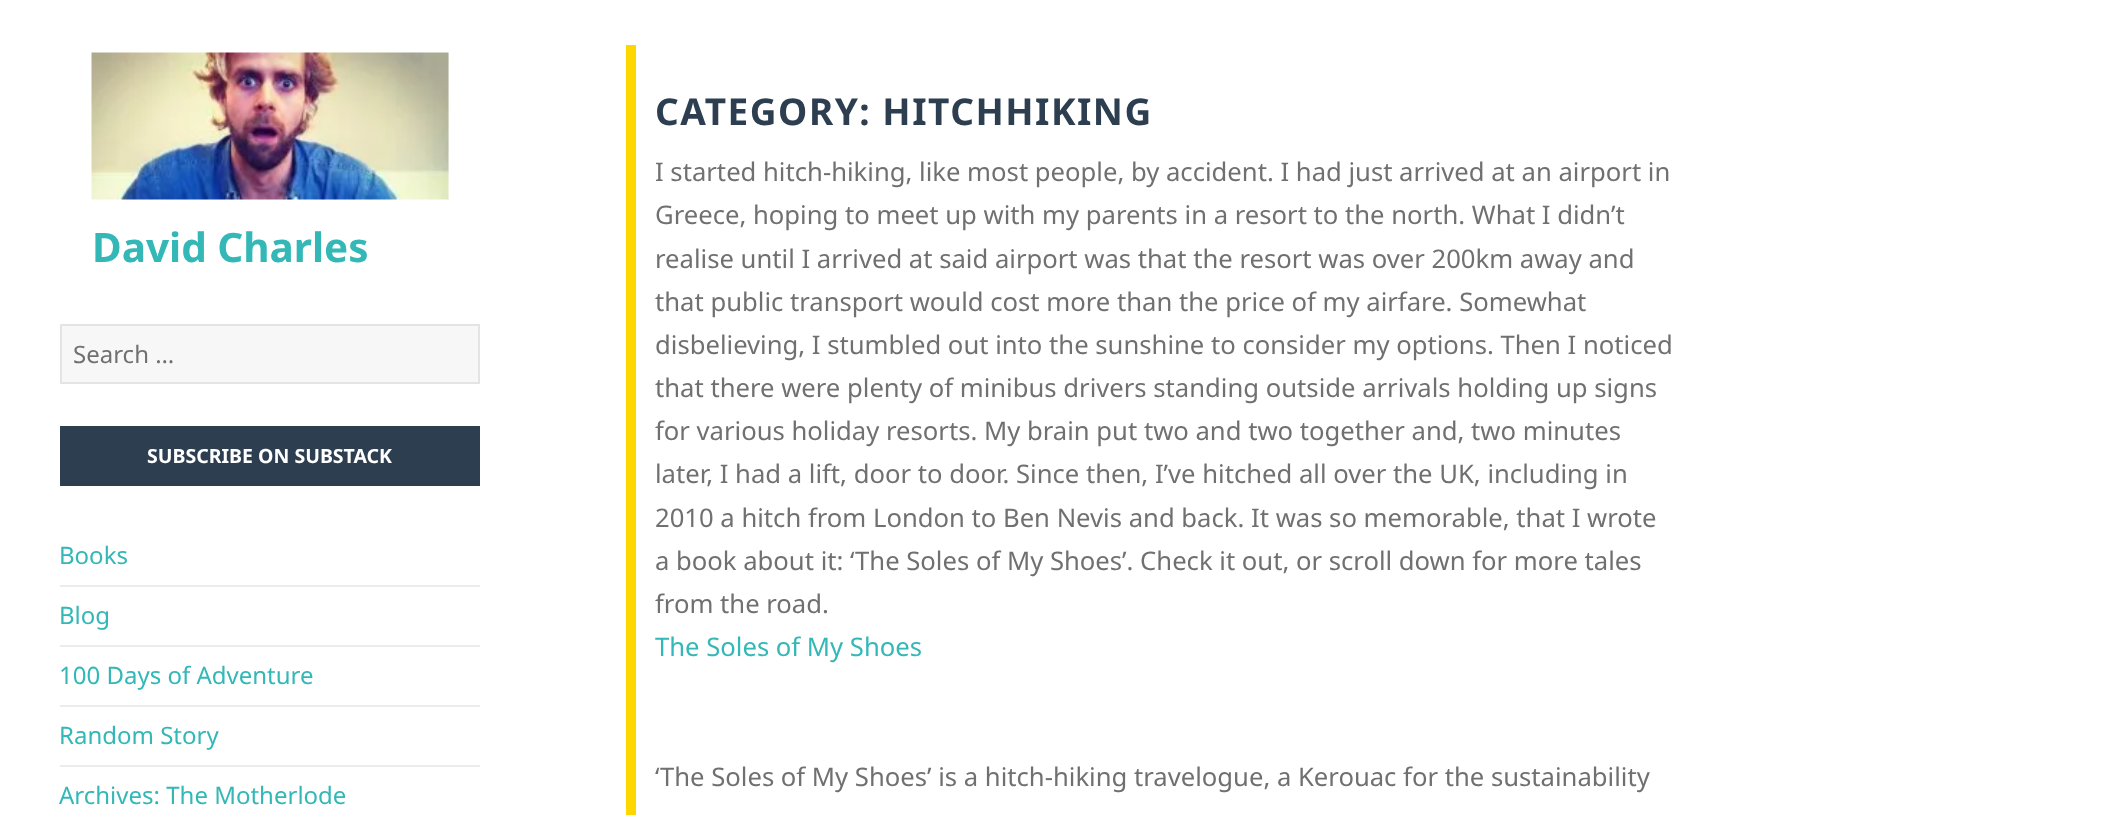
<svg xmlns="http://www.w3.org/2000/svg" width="2117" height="815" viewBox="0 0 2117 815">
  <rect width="100%" height="100%" fill="#ffffff"/>
  <image x="91" y="52" width="358" height="148" href="img1.png"/>
  <text x="92" y="262" font-family="Noto Sans" font-size="40.5" font-weight="bold" fill="#33b7b7">David Charles</text>
  <rect x="61" y="325" width="418" height="58" fill="#f7f7f7" stroke="#e3e4e6" stroke-width="2"/>
  <text x="73" y="363" font-family="Noto Sans" font-size="24" fill="#707070">Search …</text>
  <rect x="60" y="426" width="420" height="60" fill="#2c3e50"/>
  <text x="147" y="463" font-family="Noto Sans" font-size="19.5" font-weight="bold" fill="#ffffff">SUBSCRIBE ON SUBSTACK</text>
  <text x="59" y="564" font-family="Noto Sans" font-size="24" fill="#33b7b7">Books</text>
  <rect x="60" y="585" width="420" height="2" fill="#eaecee"/>
  <text x="59" y="624" font-family="Noto Sans" font-size="24" fill="#33b7b7">Blog</text>
  <rect x="60" y="645" width="420" height="2" fill="#eaecee"/>
  <text x="59" y="684" font-family="Noto Sans" font-size="24" fill="#33b7b7">100 Days of Adventure</text>
  <rect x="60" y="705" width="420" height="2" fill="#eaecee"/>
  <text x="59" y="744" font-family="Noto Sans" font-size="24" fill="#33b7b7">Random Story</text>
  <rect x="60" y="765" width="420" height="2" fill="#eaecee"/>
  <text x="59" y="804" font-family="Noto Sans" font-size="24" fill="#33b7b7">Archives: The Motherlode</text>
  <rect x="626" y="45" width="10" height="770" fill="#ffd700"/>
  <text x="655" y="125" font-family="Noto Sans" font-size="37" font-weight="bold" letter-spacing="1.5" fill="#2c3e50">CATEGORY: HITCHHIKING</text>
  <text x="655" y="181" font-family="Noto Sans" font-size="25.65" fill="#707070">I started hitch-hiking, like most people, by accident. I had just arrived at an airport in</text>
  <text x="655" y="224" font-family="Noto Sans" font-size="25.65" fill="#707070">Greece, hoping to meet up with my parents in a resort to the north. What I didn’t</text>
  <text x="655" y="268" font-family="Noto Sans" font-size="25.65" fill="#707070">realise until I arrived at said airport was that the resort was over 200km away and</text>
  <text x="655" y="311" font-family="Noto Sans" font-size="25.65" fill="#707070">that public transport would cost more than the price of my airfare. Somewhat</text>
  <text x="655" y="354" font-family="Noto Sans" font-size="25.65" fill="#707070">disbelieving, I stumbled out into the sunshine to consider my options. Then I noticed</text>
  <text x="655" y="397" font-family="Noto Sans" font-size="25.65" fill="#707070">that there were plenty of minibus drivers standing outside arrivals holding up signs</text>
  <text x="655" y="440" font-family="Noto Sans" font-size="25.65" fill="#707070">for various holiday resorts. My brain put two and two together and, two minutes</text>
  <text x="655" y="483" font-family="Noto Sans" font-size="25.65" fill="#707070">later, I had a lift, door to door. Since then, I’ve hitched all over the UK, including in</text>
  <text x="655" y="527" font-family="Noto Sans" font-size="25.65" fill="#707070">2010 a hitch from London to Ben Nevis and back. It was so memorable, that I wrote</text>
  <text x="655" y="570" font-family="Noto Sans" font-size="25.65" fill="#707070">a book about it: ‘The Soles of My Shoes’. Check it out, or scroll down for more tales</text>
  <text x="655" y="613" font-family="Noto Sans" font-size="25.65" fill="#707070">from the road.</text>
  <text x="655" y="656" font-family="Noto Sans" font-size="25.65" fill="#33b7b7">The Soles of My Shoes</text>
  <text x="655" y="786" font-family="Noto Sans" font-size="25.65" fill="#707070">‘The Soles of My Shoes’ is a hitch-hiking travelogue, a Kerouac for the sustainability</text>
</svg>
